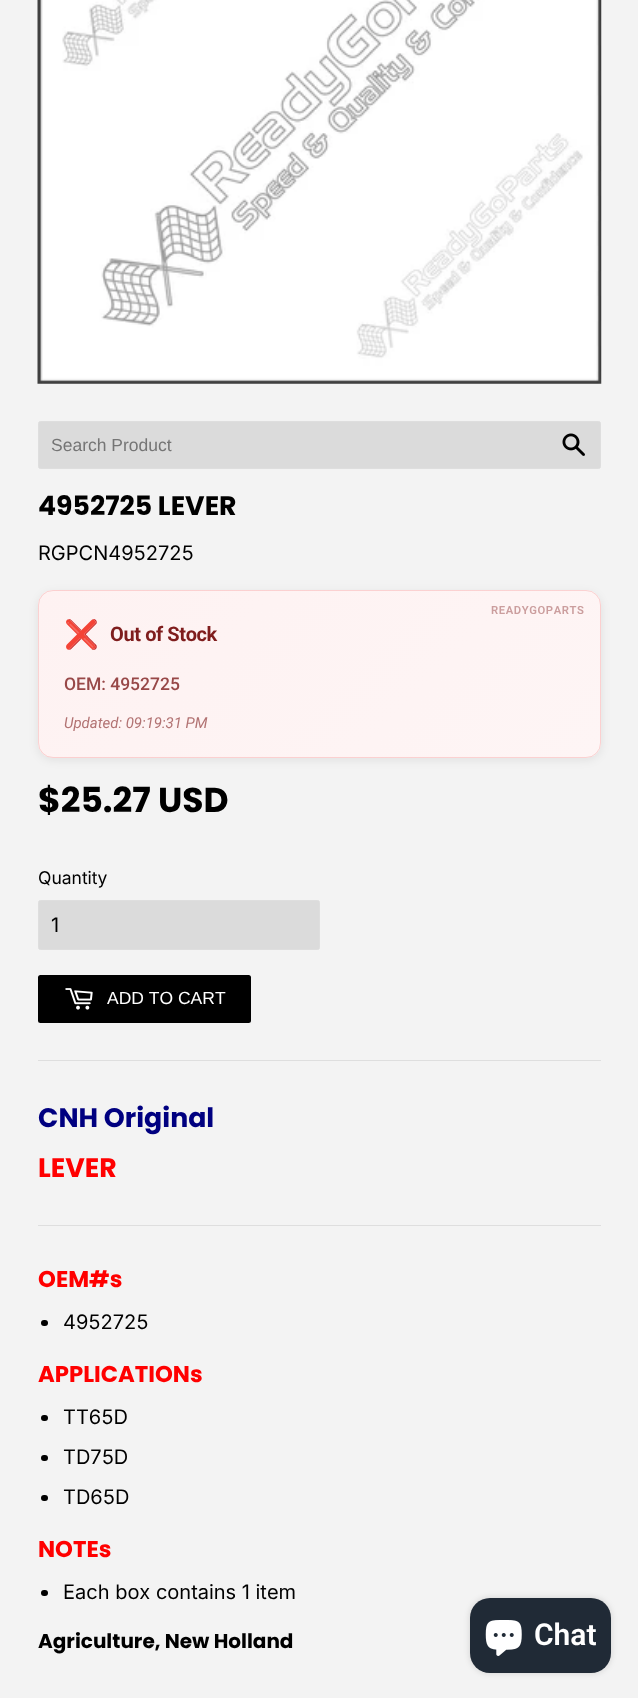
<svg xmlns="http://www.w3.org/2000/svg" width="638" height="1698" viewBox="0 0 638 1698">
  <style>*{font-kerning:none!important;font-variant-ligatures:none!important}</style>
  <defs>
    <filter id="blur1" x="-50%" y="-200%" width="200%" height="500%"><feGaussianBlur stdDeviation="5"/></filter>
    <clipPath id="clip1"><rect x="38" y="590" width="563" height="168" rx="15"/></clipPath>
    <linearGradient id="g1" gradientUnits="userSpaceOnUse" x1="138" y1="327" x2="501" y2="690"><stop offset="0" stop-color="#fef2f2"/><stop offset="1" stop-color="#fef5f5"/></linearGradient>
    <linearGradient id="g2" gradientUnits="userSpaceOnUse" x1="-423" y1="492" x2="-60" y2="855"><stop offset="0" stop-color="#fef2f2"/><stop offset="1" stop-color="#fef5f5"/></linearGradient>
    <linearGradient id="g3" gradientUnits="userSpaceOnUse" x1="138" y1="492" x2="501" y2="855"><stop offset="0" stop-color="#fef2f2"/><stop offset="1" stop-color="#fef5f5"/></linearGradient>
    <linearGradient id="g4" gradientUnits="userSpaceOnUse" x1="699" y1="492" x2="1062" y2="855"><stop offset="0" stop-color="#fef2f2"/><stop offset="1" stop-color="#fef5f5"/></linearGradient>
    <linearGradient id="g5" gradientUnits="userSpaceOnUse" x1="138" y1="657" x2="501" y2="1020"><stop offset="0" stop-color="#fef2f2"/><stop offset="1" stop-color="#fef5f5"/></linearGradient>
    <filter id="blur2" x="-50%" y="-200%" width="200%" height="500%"><feGaussianBlur stdDeviation="3"/></filter>
  </defs>
  <rect width="100%" height="100%" fill="#f3f3f3"/>
  <image x="37" y="0" width="565" height="384" href="img1.png"/>
  <rect x="38.5" y="421.5" width="562" height="47" rx="2" fill="#dbdbdb" stroke="#dedede"/>
  <text x="51" y="451" font-family="Liberation Sans" font-size="17.5" fill="#757575">Search Product</text>
  <image x="562" y="433" width="23" height="23" href="img2.png"/>
  <text x="38" y="515" font-family="Poppins" font-size="26.75" font-weight="bold" fill="#000000">4952725 LEVER</text>
  <text x="38" y="560" font-family="Inter" font-size="20" fill="#000000">RGPCN4952725</text>
  <rect x="38" y="593" width="563" height="167" rx="15" fill="#000000" fill-opacity="0.08" filter="url(#blur1)"/>
  <g clip-path="url(#clip1)">
    <rect x="48" y="590" width="543" height="1" fill="url(#g1)"/>
    <rect x="38" y="600" width="1" height="156" fill="url(#g2)"/>
    <rect x="39" y="591" width="561" height="165" fill="url(#g3)"/>
    <rect x="600" y="600" width="1" height="156" fill="url(#g4)"/>
    <rect x="39" y="756" width="561" height="2" fill="url(#g5)"/>
  </g>
  <rect x="38.5" y="590.5" width="562" height="167" rx="14.5" fill="none" stroke="#ef4444" stroke-opacity="0.2"/>
  <text x="491" y="614" font-family="Roboto" font-size="11.25" font-weight="600" letter-spacing="0.6" fill="#cb9e9e">READYGOPARTS</text>
  <text x="64" y="644" font-family="Noto Color Emoji" font-size="28" font-weight="bold" letter-spacing="-0.4" fill="#7f1d1d">❌</text>
  <text x="110" y="641" font-family="Roboto" font-size="20" font-weight="bold" letter-spacing="-0.4" fill="#7f1d1d">Out of Stock</text>
  <text x="64" y="690" font-family="Roboto" font-size="17.5" font-weight="500" fill="#984848">OEM: 4952725</text>
  <text x="64" y="728" font-family="Roboto" font-size="15" font-style="italic" fill="#b27373">Updated: 09:19:31 PM</text>
  <text x="38" y="812" font-family="Poppins" font-size="34.5" font-weight="bold" fill="#000000">$25.27 USD</text>
  <text x="38" y="884" font-family="Inter" font-size="17.5" fill="#000000">Quantity</text>
  <rect x="38.5" y="900.5" width="281" height="49" rx="2" fill="#dbdbdb" stroke="#dedede"/>
  <text x="51" y="932" font-family="Inter" font-size="20" fill="#000000">1</text>
  <rect x="38" y="975" width="213" height="48" rx="2.5" fill="#000000"/>
  <image x="65" y="988" width="28" height="22" href="img3.png"/>
  <text x="107" y="1004" font-family="Liberation Sans" font-size="17.5" fill="#ffffff">ADD TO CART</text>
  <rect x="38" y="1060" width="563" height="1" fill="#dedede"/>
  <text x="38" y="1127" font-family="Poppins" font-size="26.75" font-weight="bold" fill="#000080">CNH Original</text>
  <text x="38" y="1177" font-family="Poppins" font-size="26.75" font-weight="bold" fill="#ff0000">LEVER</text>
  <rect x="38" y="1225" width="563" height="1" fill="#dedede"/>
  <text x="38" y="1287" font-family="Poppins" font-size="22.75" font-weight="bold" fill="#ff0000">OEM#s</text>
  <rect x="41" y="1320" width="7" height="6" rx="3" fill="#000000"/>
  <text x="63" y="1329" font-family="Inter" font-size="20" fill="#000000">4952725</text>
  <text x="38" y="1382" font-family="Poppins" font-size="22.75" font-weight="bold" fill="#ff0000">APPLICATIONs</text>
  <rect x="41" y="1415" width="7" height="6" rx="3" fill="#000000"/>
  <text x="63" y="1424" font-family="Inter" font-size="20" fill="#000000">TT65D</text>
  <rect x="41" y="1455" width="7" height="6" rx="3" fill="#000000"/>
  <text x="63" y="1464" font-family="Inter" font-size="20" fill="#000000">TD75D</text>
  <rect x="41" y="1495" width="7" height="6" rx="3" fill="#000000"/>
  <text x="63" y="1504" font-family="Inter" font-size="20" fill="#000000">TD65D</text>
  <text x="38" y="1557" font-family="Poppins" font-size="22.75" font-weight="bold" fill="#ff0000">NOTEs</text>
  <rect x="41" y="1590" width="7" height="6" rx="3" fill="#000000"/>
  <text x="63" y="1599" font-family="Inter" font-size="20" fill="#000000">Each box contains 1 item</text>
  <text x="38" y="1648" font-family="Poppins" font-size="20" font-weight="bold" fill="#000000">Agriculture, New Holland</text>
  <rect x="470" y="1598" width="141" height="75" rx="20" fill="#000000" fill-opacity="0.15" filter="url(#blur2)"/>
  <rect x="470" y="1598" width="141" height="75" rx="20" fill="#202a36"/>
  <image x="485" y="1620" width="37" height="36" href="img4.png"/>
  <text x="534" y="1645" font-family="Roboto" font-size="30" font-weight="600" fill="#ffffff">Chat</text>
</svg>
